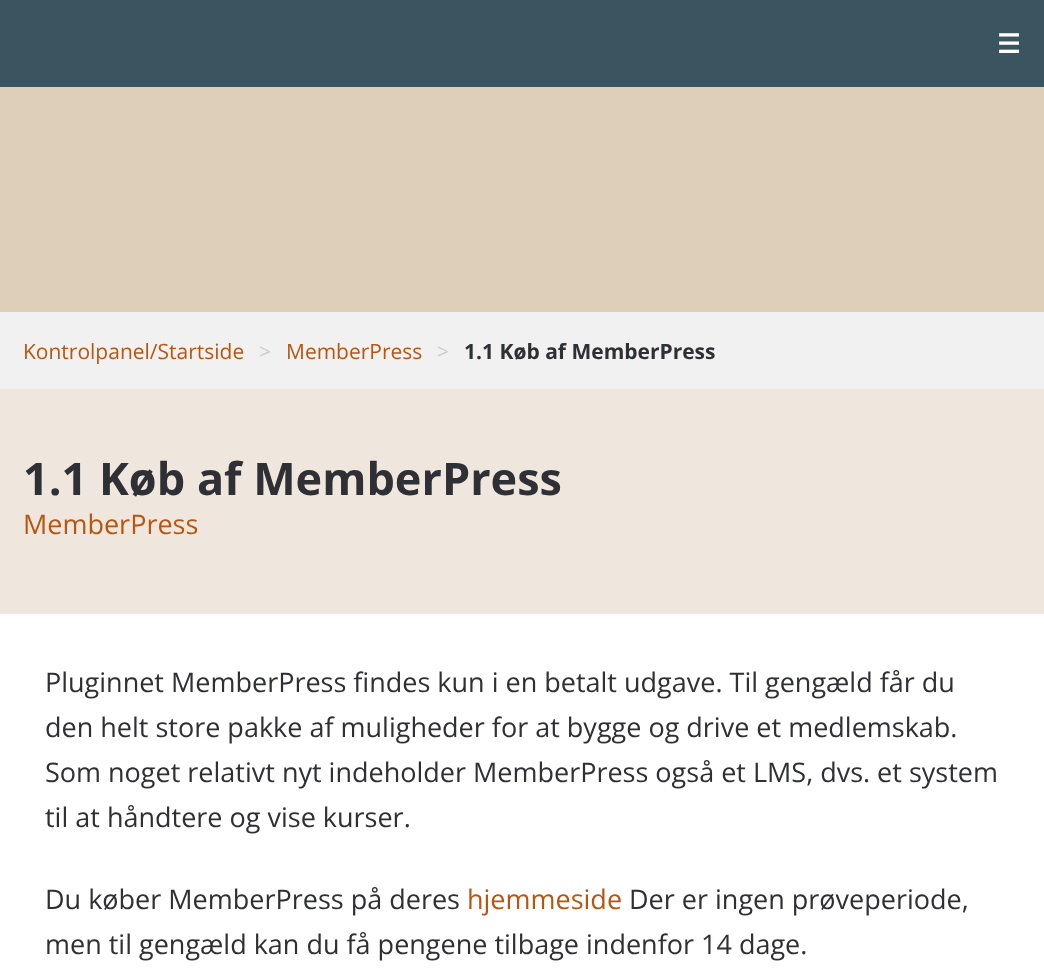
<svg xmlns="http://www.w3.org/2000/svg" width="1044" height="973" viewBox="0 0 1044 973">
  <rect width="100%" height="100%" fill="#ffffff"/>
  <rect x="0" y="0" width="1044" height="87" fill="#3a5460"/>
  <text x="997" y="53" font-family="DejaVu Sans" font-size="26" font-weight="bold" fill="#ffffff">☰</text>
  <rect x="0" y="87" width="1044" height="225" fill="#decfb8"/>
  <rect x="0" y="312" width="1044" height="77" fill="#f1f1f1"/>
  <text x="23" y="359" font-family="Open Sans" font-size="21" fill="#b85611">Kontrolpanel/Startside</text>
  <text x="259" y="359" font-family="Open Sans" font-size="21" fill="#cccccc">&gt;</text>
  <text x="286" y="359" font-family="Open Sans" font-size="21" fill="#b85611">MemberPress</text>
  <text x="437" y="359" font-family="Open Sans" font-size="21" fill="#cccccc">&gt;</text>
  <text x="464" y="359" font-family="Open Sans" font-size="21" font-weight="bold" fill="#2f3035">1.1 Køb af MemberPress</text>
  <rect x="0" y="389" width="1044" height="225" fill="#efe7dd"/>
  <text x="23" y="495" font-family="Open Sans" font-size="45" font-weight="bold" fill="#2f3035">1.1 Køb af MemberPress</text>
  <text x="23" y="534" font-family="Open Sans" font-size="27" fill="#b85611">MemberPress</text>
  <text x="45" y="692" font-family="Open Sans" font-size="27" fill="#2f3035">Pluginnet MemberPress findes kun i en betalt udgave. Til gengæld får du</text>
  <text x="45" y="737" font-family="Open Sans" font-size="27" fill="#2f3035">den helt store pakke af muligheder for at bygge og drive et medlemskab.</text>
  <text x="45" y="782" font-family="Open Sans" font-size="27" fill="#2f3035">Som noget relativt nyt indeholder MemberPress også et LMS, dvs. et system</text>
  <text x="45" y="827" font-family="Open Sans" font-size="27" fill="#2f3035">til at håndtere og vise kurser.</text>
  <text x="45" y="909" font-family="Open Sans" font-size="27" fill="#2f3035">Du køber MemberPress på deres</text>
  <text x="467" y="909" font-family="Open Sans" font-size="27" fill="#b85611">hjemmeside</text>
  <text x="629" y="909" font-family="Open Sans" font-size="27" fill="#2f3035">Der er ingen prøveperiode,</text>
  <text x="45" y="954" font-family="Open Sans" font-size="27" fill="#2f3035">men til gengæld kan du få pengene tilbage indenfor 14 dage.</text>
</svg>
